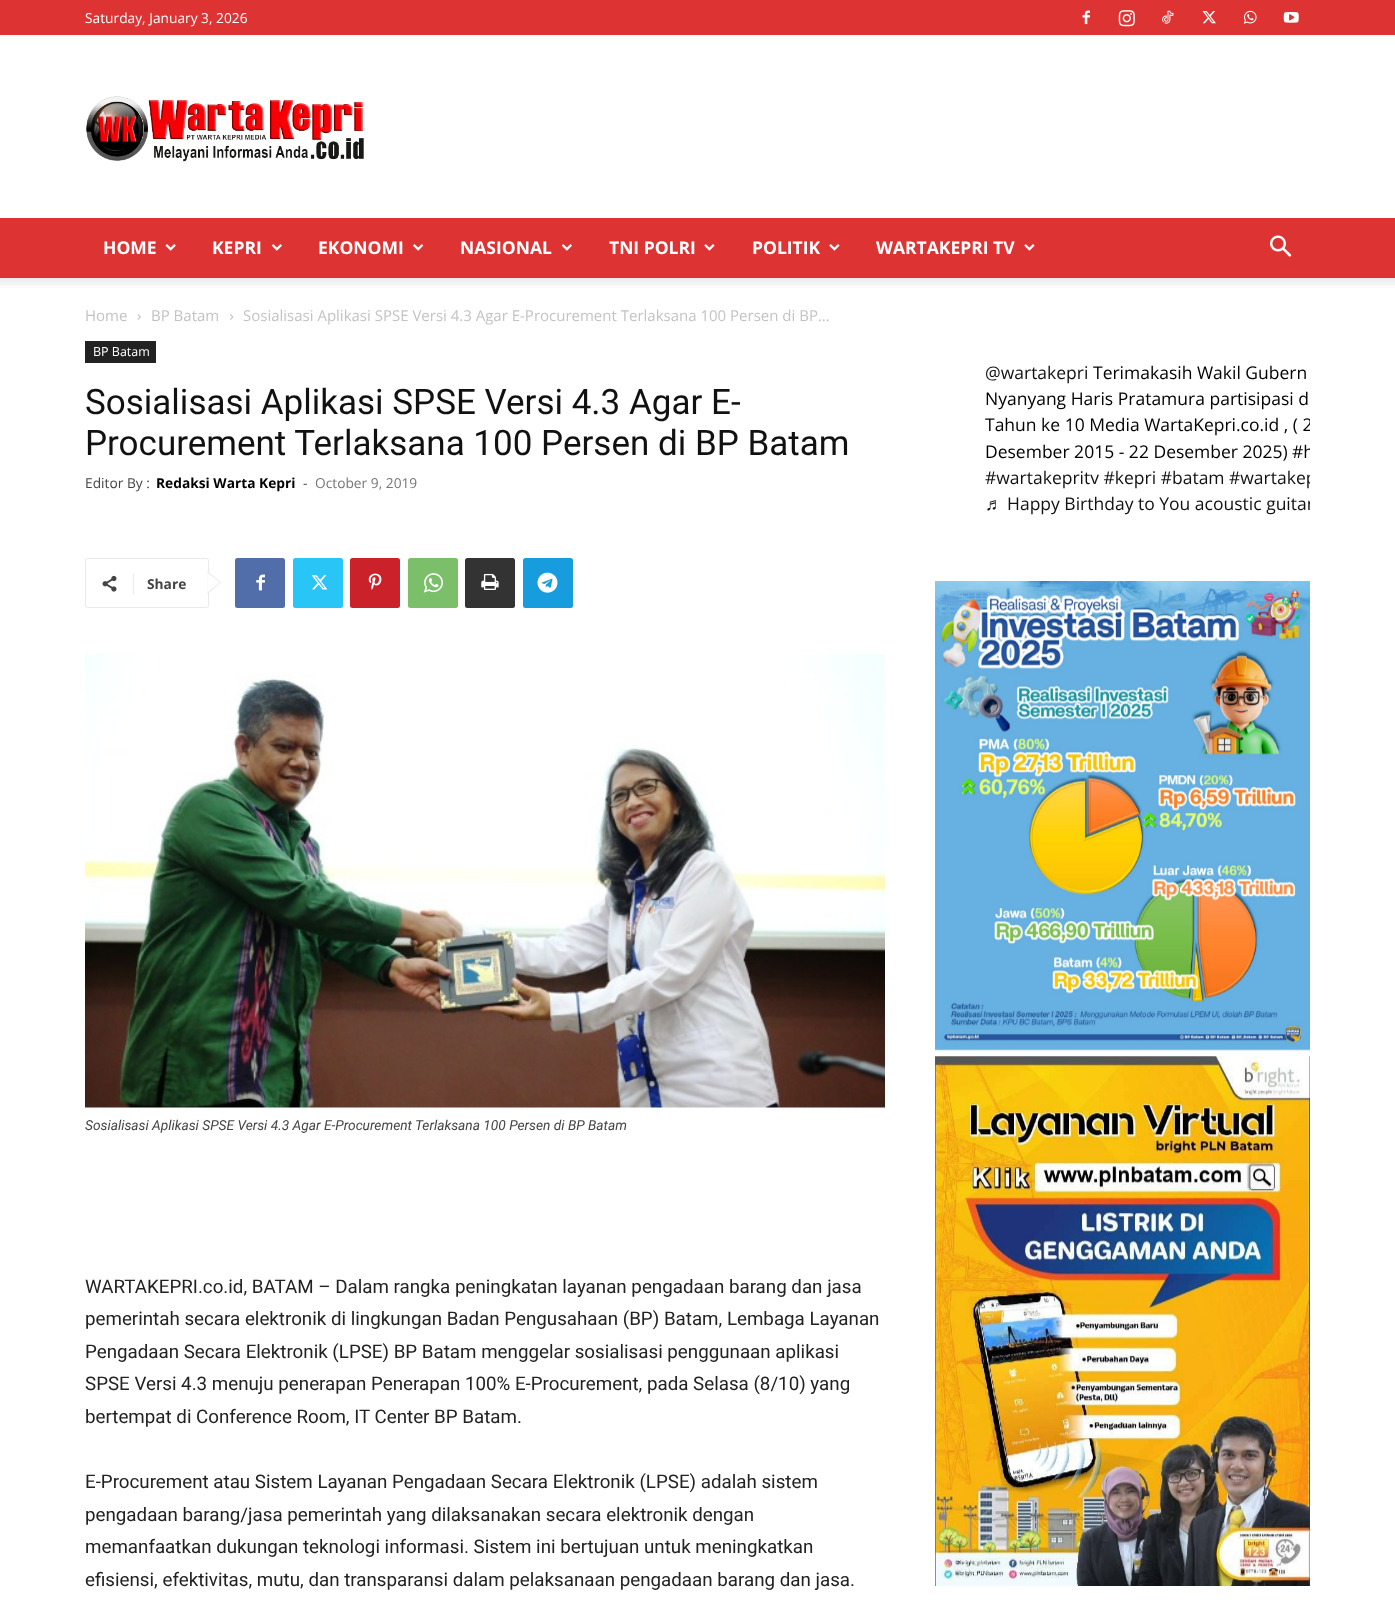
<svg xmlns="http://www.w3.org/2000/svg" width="1395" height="1606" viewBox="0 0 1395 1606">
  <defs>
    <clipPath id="clip1"><rect x="935" y="341" width="375" height="193"/></clipPath>
  </defs>
  <rect width="100%" height="100%" fill="#ffffff"/>
  <rect x="0" y="0" width="1395" height="35" fill="#dd3333"/>
  <text x="85" y="23" font-family="Open Sans" font-size="13.75" fill="#ffffff">Saturday, January 3, 2026</text>
  <image x="1082" y="10" width="8" height="15" href="img1.png"/>
  <image x="1118" y="10" width="17" height="17" href="img2.png"/>
  <image x="1162" y="10" width="12" height="14" href="img3.png"/>
  <image x="1202" y="11" width="14" height="13" href="img4.png"/>
  <image x="1243" y="10" width="14" height="14" href="img5.png"/>
  <image x="1283" y="12" width="16" height="11" href="img6.png"/>
  <image x="86" y="96" width="278" height="66" href="img7.png"/>
  <rect x="0" y="218" width="1395" height="60" fill="#dd3333"/>
  <text x="103" y="254" font-family="Open Sans" font-size="17.5" font-weight="bold" fill="#ffffff">HOME</text>
  <image x="165" y="244" width="11" height="7" href="img8.png"/>
  <text x="212" y="254" font-family="Open Sans" font-size="17.5" font-weight="bold" fill="#ffffff">KEPRI</text>
  <image x="271" y="244" width="11" height="7" href="img9.png"/>
  <text x="318" y="254" font-family="Open Sans" font-size="17.5" font-weight="bold" fill="#ffffff">EKONOMI</text>
  <image x="413" y="244" width="11" height="7" href="img10.png"/>
  <text x="460" y="254" font-family="Open Sans" font-size="17.5" font-weight="bold" fill="#ffffff">NASIONAL</text>
  <image x="561" y="244" width="11" height="7" href="img9.png"/>
  <text x="609" y="254" font-family="Open Sans" font-size="17.5" font-weight="bold" fill="#ffffff">TNI POLRI</text>
  <image x="704" y="244" width="11" height="7" href="img11.png"/>
  <text x="752" y="254" font-family="Open Sans" font-size="17.5" font-weight="bold" fill="#ffffff">POLITIK</text>
  <image x="829" y="244" width="11" height="7" href="img11.png"/>
  <text x="876" y="254" font-family="Open Sans" font-size="17.5" font-weight="bold" fill="#ffffff">WARTAKEPRI TV</text>
  <image x="1024" y="244" width="11" height="7" href="img11.png"/>
  <image x="1270" y="235" width="22" height="22" href="img12.png"/>
  <image x="0" y="277" width="1395" height="11" href="img13.png"/>
  <text x="85" y="321" font-family="Open Sans" font-size="15" fill="#c3c3c3">Home</text>
  <image x="137" y="314" width="4" height="6" href="img14.png"/>
  <text x="151" y="321" font-family="Open Sans" font-size="15" fill="#c3c3c3">BP Batam</text>
  <image x="230" y="314" width="4" height="6" href="img15.png"/>
  <text x="243" y="321" font-family="Open Sans" font-size="15" fill="#c3c3c3">Sosialisasi Aplikasi SPSE Versi 4.3 Agar E-Procurement Terlaksana 100 Persen di BP...</text>
  <rect x="85" y="341" width="71" height="22" fill="#222222"/>
  <text x="93" y="356" font-family="Open Sans" font-size="12.5" fill="#ffffff">BP Batam</text>
  <text x="85" y="414" font-family="Roboto" font-size="35" fill="#111111">Sosialisasi Aplikasi SPSE Versi 4.3 Agar E-</text>
  <text x="85" y="455" font-family="Roboto" font-size="35" fill="#111111">Procurement Terlaksana 100 Persen di BP Batam</text>
  <text x="85" y="488" font-family="Open Sans" font-size="13.75" fill="#444444">Editor By :</text>
  <text x="156" y="488" font-family="Open Sans" font-size="13.75" font-weight="bold" fill="#000000">Redaksi Warta Kepri</text>
  <text x="303" y="488" font-family="Open Sans" font-size="13.75" fill="#444444">-</text>
  <text x="315" y="488" font-family="Open Sans" font-size="13.75" fill="#767676">October 9, 2019</text>
  <rect x="85.5" y="558.5" width="123" height="49" rx="2" fill="none" stroke="#e9e9e9"/>
  <path d="M207.5 594V571L221 582.5Z" fill="#e9e9e9"/>
  <image x="102" y="575" width="15" height="17" href="img16.png"/>
  <rect x="133" y="574" width="1" height="20" fill="#ebebeb"/>
  <text x="147" y="589" font-family="Open Sans" font-size="13.75" font-weight="bold" fill="#444444">Share</text>
  <path d="M207.5 592.5V572.5L220 582.5Z" fill="#ffffff"/>
  <rect x="235" y="558" width="50" height="50" rx="2.5" fill="#516eab"/>
  <image x="256" y="574" width="9" height="17" href="img17.png"/>
  <rect x="293" y="558" width="50" height="50" rx="2.5" fill="#29c5f6"/>
  <image x="311" y="575" width="17" height="15" href="img18.png"/>
  <rect x="350" y="558" width="50" height="50" rx="2.5" fill="#ca212a"/>
  <image x="368" y="573" width="14" height="17" href="img19.png"/>
  <rect x="408" y="558" width="50" height="50" rx="2.5" fill="#7bbf6a"/>
  <image x="423" y="573" width="20" height="20" href="img20.png"/>
  <rect x="465" y="558" width="50" height="50" rx="2.5" fill="#333333"/>
  <image x="481" y="573" width="18" height="17" href="img21.png"/>
  <rect x="523" y="558" width="50" height="50" rx="2.5" fill="#179cde"/>
  <image x="537" y="572" width="21" height="21" href="img22.png"/>
  <image x="85" y="653" width="800" height="455" href="img23.png"/>
  <text x="85" y="1130" font-family="Roboto" font-size="13.75" font-style="italic" fill="#444444">Sosialisasi Aplikasi SPSE Versi 4.3 Agar E-Procurement Terlaksana 100 Persen di BP Batam</text>
  <text x="85" y="1293" font-family="Roboto" font-size="18.75" fill="#222222">WARTAKEPRI.co.id, BATAM – Dalam rangka peningkatan layanan pengadaan barang dan jasa</text>
  <text x="85" y="1325" font-family="Roboto" font-size="18.75" fill="#222222">pemerintah secara elektronik di lingkungan Badan Pengusahaan (BP) Batam, Lembaga Layanan</text>
  <text x="85" y="1358" font-family="Roboto" font-size="18.75" fill="#222222">Pengadaan Secara Elektronik (LPSE) BP Batam menggelar sosialisasi penggunaan aplikasi</text>
  <text x="85" y="1390" font-family="Roboto" font-size="18.75" fill="#222222">SPSE Versi 4.3 menuju penerapan Penerapan 100% E-Procurement, pada Selasa (8/10) yang</text>
  <text x="85" y="1423" font-family="Roboto" font-size="18.75" fill="#222222">bertempat di Conference Room, IT Center BP Batam.</text>
  <text x="85" y="1488" font-family="Roboto" font-size="18.75" fill="#222222">E-Procurement atau Sistem Layanan Pengadaan Secara Elektronik (LPSE) adalah sistem</text>
  <text x="85" y="1521" font-family="Roboto" font-size="18.75" fill="#222222">pengadaan barang/jasa pemerintah yang dilaksanakan secara elektronik dengan</text>
  <text x="85" y="1553" font-family="Roboto" font-size="18.75" fill="#222222">memanfaatkan dukungan teknologi informasi. Sistem ini bertujuan untuk meningkatkan</text>
  <text x="85" y="1586" font-family="Roboto" font-size="18.75" fill="#222222">efisiensi, efektivitas, mutu, dan transparansi dalam pelaksanaan pengadaan barang dan jasa.</text>
  <text x="985" y="379" font-family="Open Sans" font-size="17.5" fill="#111111">@wartakepri</text>
  <text x="1093" y="379" font-family="Open Sans" font-size="17.5" fill="#000000">Terimakasih Wakil Gubern</text>
  <text x="985" y="405" font-family="Open Sans" font-size="17.5" fill="#000000">Nyanyang Haris Pratamura partisipasi d</text>
  <g clip-path="url(#clip1)">
    <text x="985" y="431" font-family="Open Sans" font-size="17.5" fill="#000000">Tahun ke 10 Media WartaKepri.co.id , ( 2</text>
  </g>
  <text x="985" y="458" font-family="Open Sans" font-size="17.5" fill="#000000">Desember 2015 - 22 Desember 2025)</text>
  <g clip-path="url(#clip1)">
    <text x="1292" y="458" font-family="Open Sans" font-size="17.5" fill="#000000">#h</text>
  </g>
  <text x="985" y="484" font-family="Open Sans" font-size="17.5" fill="#111111">#wartakepritv #kepri #batam</text>
  <g clip-path="url(#clip1)">
    <text x="1229" y="484" font-family="Open Sans" font-size="17.5" fill="#111111">#wartakep</text>
  </g>
  <text x="985" y="510" font-family="Liberation Sans" font-size="17.5" fill="#111111">♬</text>
  <g clip-path="url(#clip1)">
    <text x="1007" y="510" font-family="Open Sans" font-size="17.5" fill="#111111">Happy Birthday to You acoustic guitar</text>
  </g>
  <image x="935" y="581" width="375" height="470" href="img24.png"/>
  <image x="935" y="1056" width="375" height="530" href="img25.png"/>
</svg>
